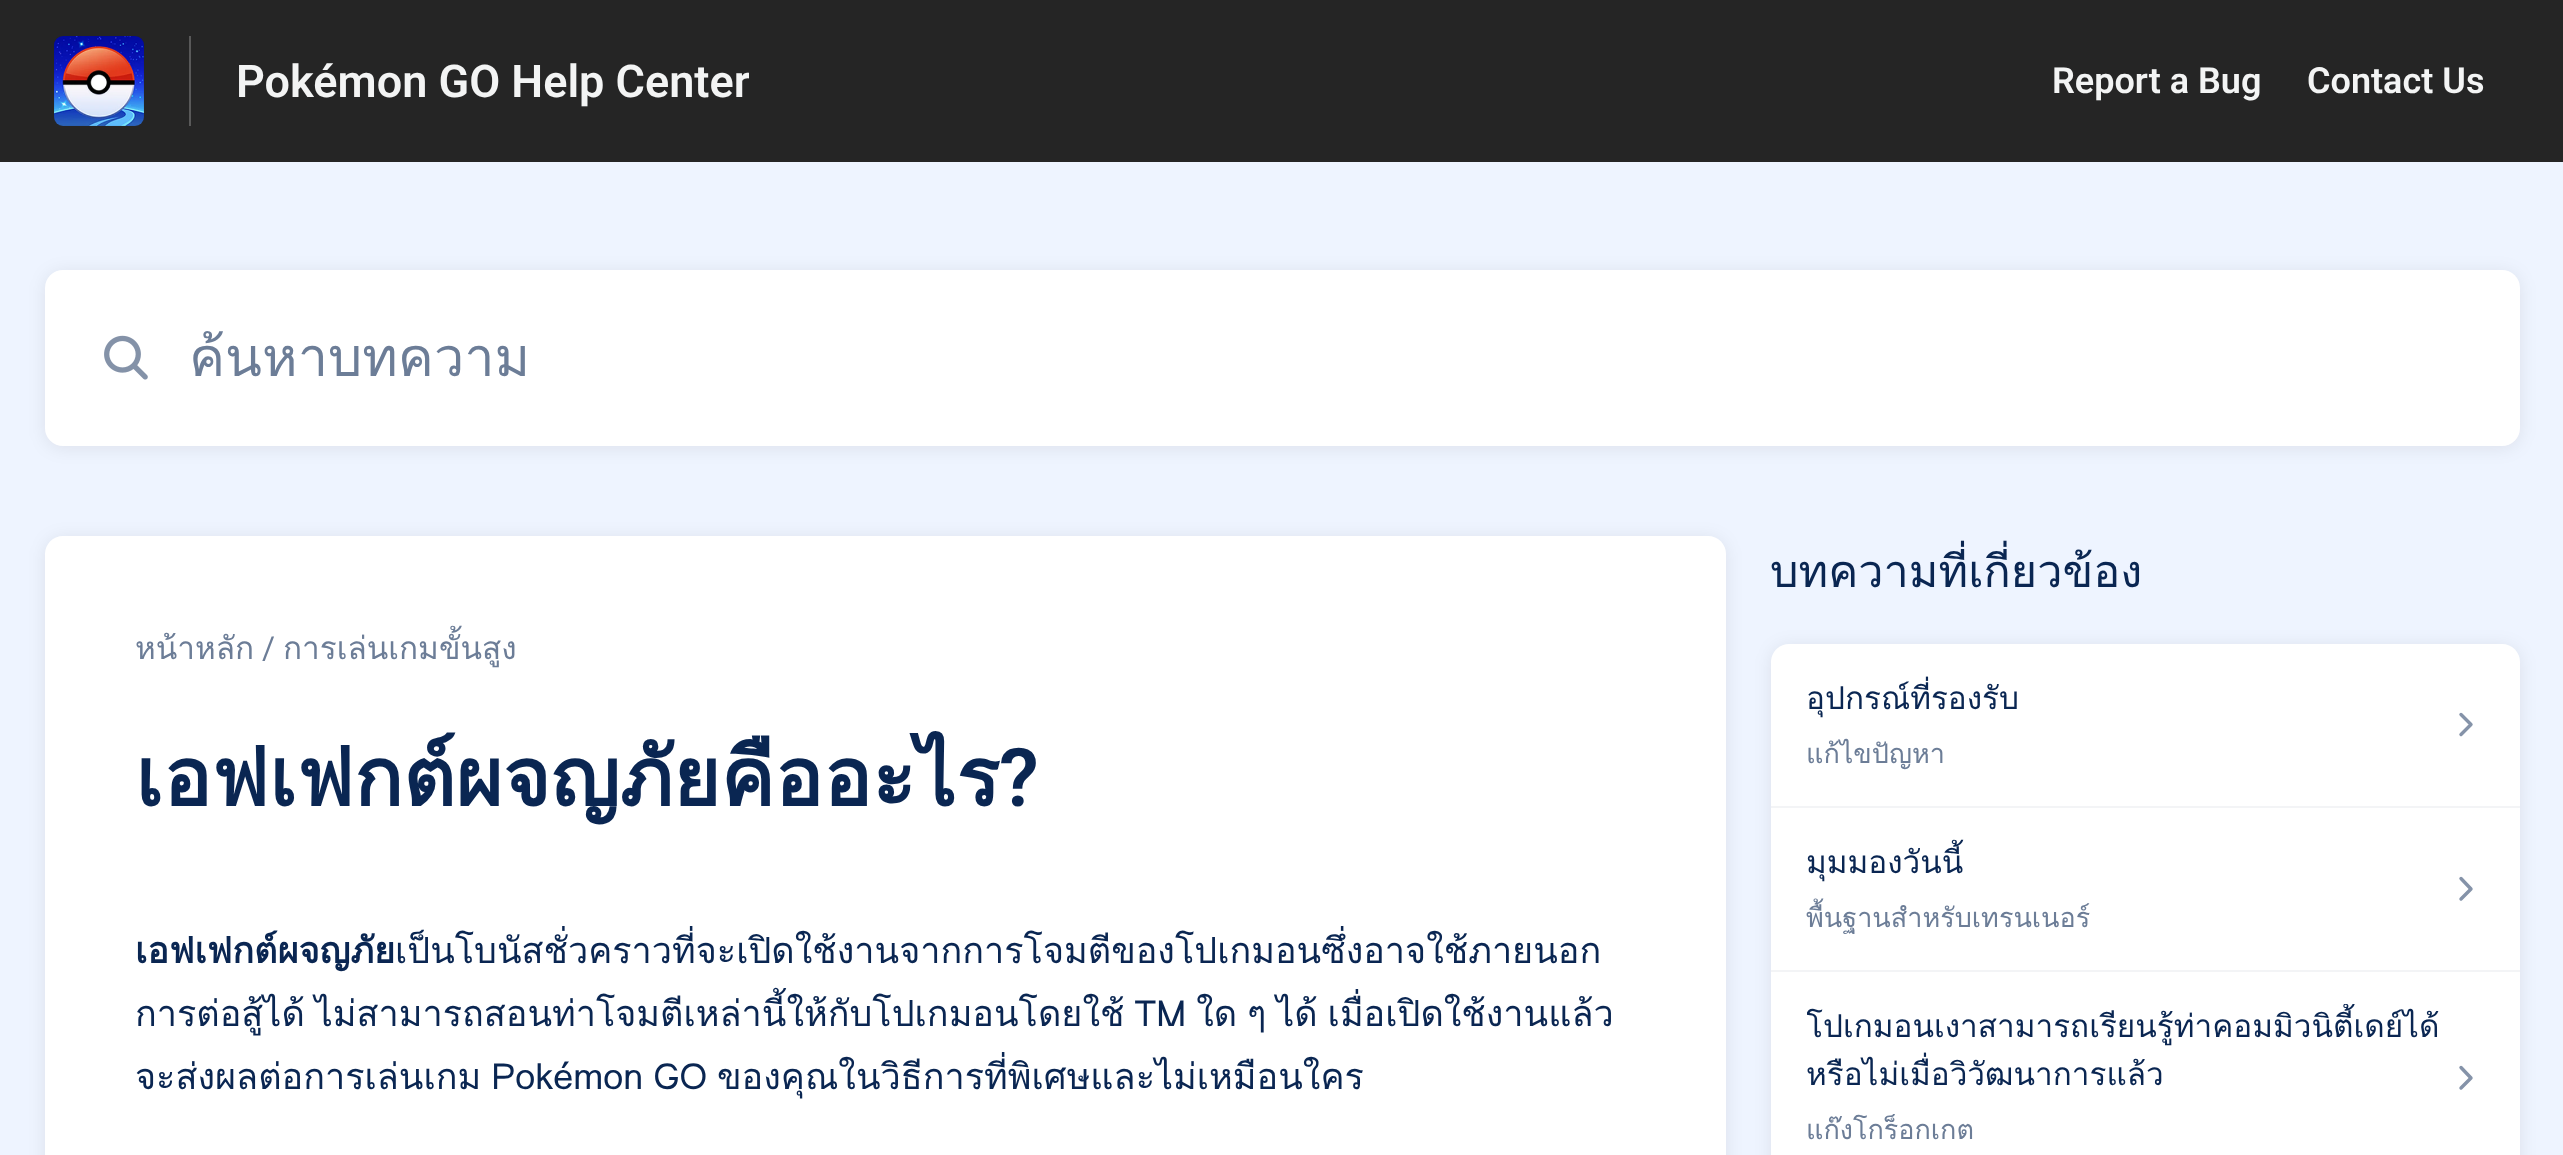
<svg xmlns="http://www.w3.org/2000/svg" width="2563" height="1155" viewBox="0 0 2563 1155">
  <defs>
    <clipPath id="clip1"><rect x="236" y="54" width="513" height="54"/></clipPath>
    <filter id="blur1" x="-50%" y="-200%" width="200%" height="500%"><feGaussianBlur stdDeviation="9"/></filter>
    <clipPath id="clip2"><rect x="189" y="313" width="2142" height="88"/></clipPath>
    <clipPath id="clip3"><rect x="1807" y="675" width="211" height="56"/></clipPath>
    <clipPath id="clip4"><rect x="1807" y="839" width="283" height="57"/></clipPath>
    <clipPath id="clip5"><rect x="1807" y="1004" width="641" height="103"/></clipPath>
  </defs>
  <rect width="100%" height="100%" fill="#eef4ff"/>
  <rect x="0" y="0" width="2563" height="162" fill="#252525"/>
  <rect x="189" y="36" width="2" height="90" fill="#595959"/>
  <image x="54" y="36" width="90" height="90" href="img1.png"/>
  <g clip-path="url(#clip1)">
    <text x="236" y="97" font-family="Roboto" font-size="45" font-weight="600" fill="#f3f4f4">Pokémon GO Help Center</text>
  </g>
  <text x="2052" y="93" font-family="Roboto" font-size="36" font-weight="600" fill="#f3f4f4">Report a Bug</text>
  <text x="2307" y="93" font-family="Roboto" font-size="36" font-weight="600" fill="#f3f4f4">Contact Us</text>
  <rect x="45" y="272" width="2475" height="176" rx="18" fill="#000000" fill-opacity="0.08" filter="url(#blur1)"/>
  <rect x="45" y="270" width="2475" height="176" rx="18" fill="#ffffff"/>
  <image x="104" y="335" width="44" height="45" href="img2.png"/>
  <g clip-path="url(#clip2)">
    <text x="189" y="376" font-family="Loma" font-size="54" fill="#6c7d97">ค้นหาบทความ</text>
  </g>
  <rect x="45" y="538" width="1681" height="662" rx="18" fill="#000000" fill-opacity="0.08" filter="url(#blur1)"/>
  <path d="M63 536H1708C1718 536 1726 544 1726 554V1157H45V554C45 544 53 536 63 536Z" fill="#ffffff"/>
  <text x="135" y="659" font-family="Loma" font-size="31.5" fill="#6c7d97">หน้าหลัก</text>
  <text x="262" y="659" font-family="Roboto" font-size="31.5" fill="#6c7d97">/</text>
  <text x="283" y="659" font-family="Loma" font-size="31.5" fill="#6c7d97">การเล่นเกมขั้นสูง</text>
  <text x="135" y="806" font-family="Loma" font-size="81" font-weight="bold" fill="#0a2652">เอฟเฟกต์ผจญภัยคืออะไร</text>
  <text x="999" y="806" font-family="Roboto" font-size="81" font-weight="600" fill="#0a2652">?</text>
  <text x="135" y="963" font-family="Loma" font-size="36" font-weight="bold" fill="#0a2652">เอฟเฟกต์ผจญภัย</text>
  <text x="395" y="963" font-family="Loma" font-size="36" fill="#0a2652">เป็นโบนัสชั่วคราวที่จะเปิดใช้งานจากการโจมตีของโปเกมอนซึ่งอาจใช้ภายนอก</text>
  <text x="135" y="1026" word-spacing="-2.25" font-family="Loma" font-size="36" fill="#0a2652">การต่อสู้ได้ ไม่สามารถสอนท่าโจมตีเหล่านี้ให้กับโปเกมอนโดยใช้ TM ใด ๆ ได้ เมื่อเปิดใช้งานแล้ว</text>
  <text x="135" y="1089" word-spacing="-2.25" font-family="Loma" font-size="36" fill="#0a2652">จะส่งผลต่อการเล่นเกม Pokémon GO ของคุณในวิธีการที่พิเศษและไม่เหมือนใคร</text>
  <text x="1770" y="587" font-family="Loma" font-size="45" fill="#0a2652">บทความที่เกี่ยวข้อง</text>
  <rect x="1771" y="646" width="749" height="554" rx="18" fill="#000000" fill-opacity="0.08" filter="url(#blur1)"/>
  <path d="M1789 644H2502C2512 644 2520 652 2520 662V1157H1771V662C1771 652 1779 644 1789 644Z" fill="#ffffff"/>
  <rect x="1771" y="806" width="749" height="2" fill="#f3f4f6"/>
  <g clip-path="url(#clip3)">
    <text x="1806" y="709" font-family="Loma" font-size="31.5" fill="#0a2652">อุปกรณ์ที่รองรับ</text>
  </g>
  <text x="1806" y="763" font-family="Loma" font-size="27" fill="#6c7d97">แก้ไขปัญหา</text>
  <path d="M2461 714.5L2471 724.5L2461 734.5" fill="none" stroke="#8593a9" stroke-width="3.4" stroke-linecap="round" stroke-linejoin="round"/>
  <rect x="1771" y="970" width="749" height="2" fill="#f3f4f6"/>
  <g clip-path="url(#clip4)">
    <text x="1806" y="873" font-family="Loma" font-size="31.5" fill="#0a2652">มุมมองวันนี้</text>
  </g>
  <text x="1806" y="927" font-family="Loma" font-size="27" fill="#6c7d97">พื้นฐานสำหรับเทรนเนอร์</text>
  <path d="M2461 878.5L2471 889L2461 899" fill="none" stroke="#8593a9" stroke-width="3.4" stroke-linecap="round" stroke-linejoin="round"/>
  <g clip-path="url(#clip5)">
    <text x="1806" y="1037" font-family="Loma" font-size="31.5" fill="#0a2652">โปเกมอนเงาสามารถเรียนรู้ท่าคอมมิวนิตี้เดย์ได้</text>
  </g>
  <text x="1806" y="1085" font-family="Loma" font-size="31.5" fill="#0a2652">หรือไม่เมื่อวิวัฒนาการแล้ว</text>
  <text x="1806" y="1139" font-family="Loma" font-size="27" fill="#6c7d97">แก๊งโกร็อกเกต</text>
  <path d="M2461 1067.5L2471 1078L2461 1088" fill="none" stroke="#8593a9" stroke-width="3.4" stroke-linecap="round" stroke-linejoin="round"/>
</svg>
